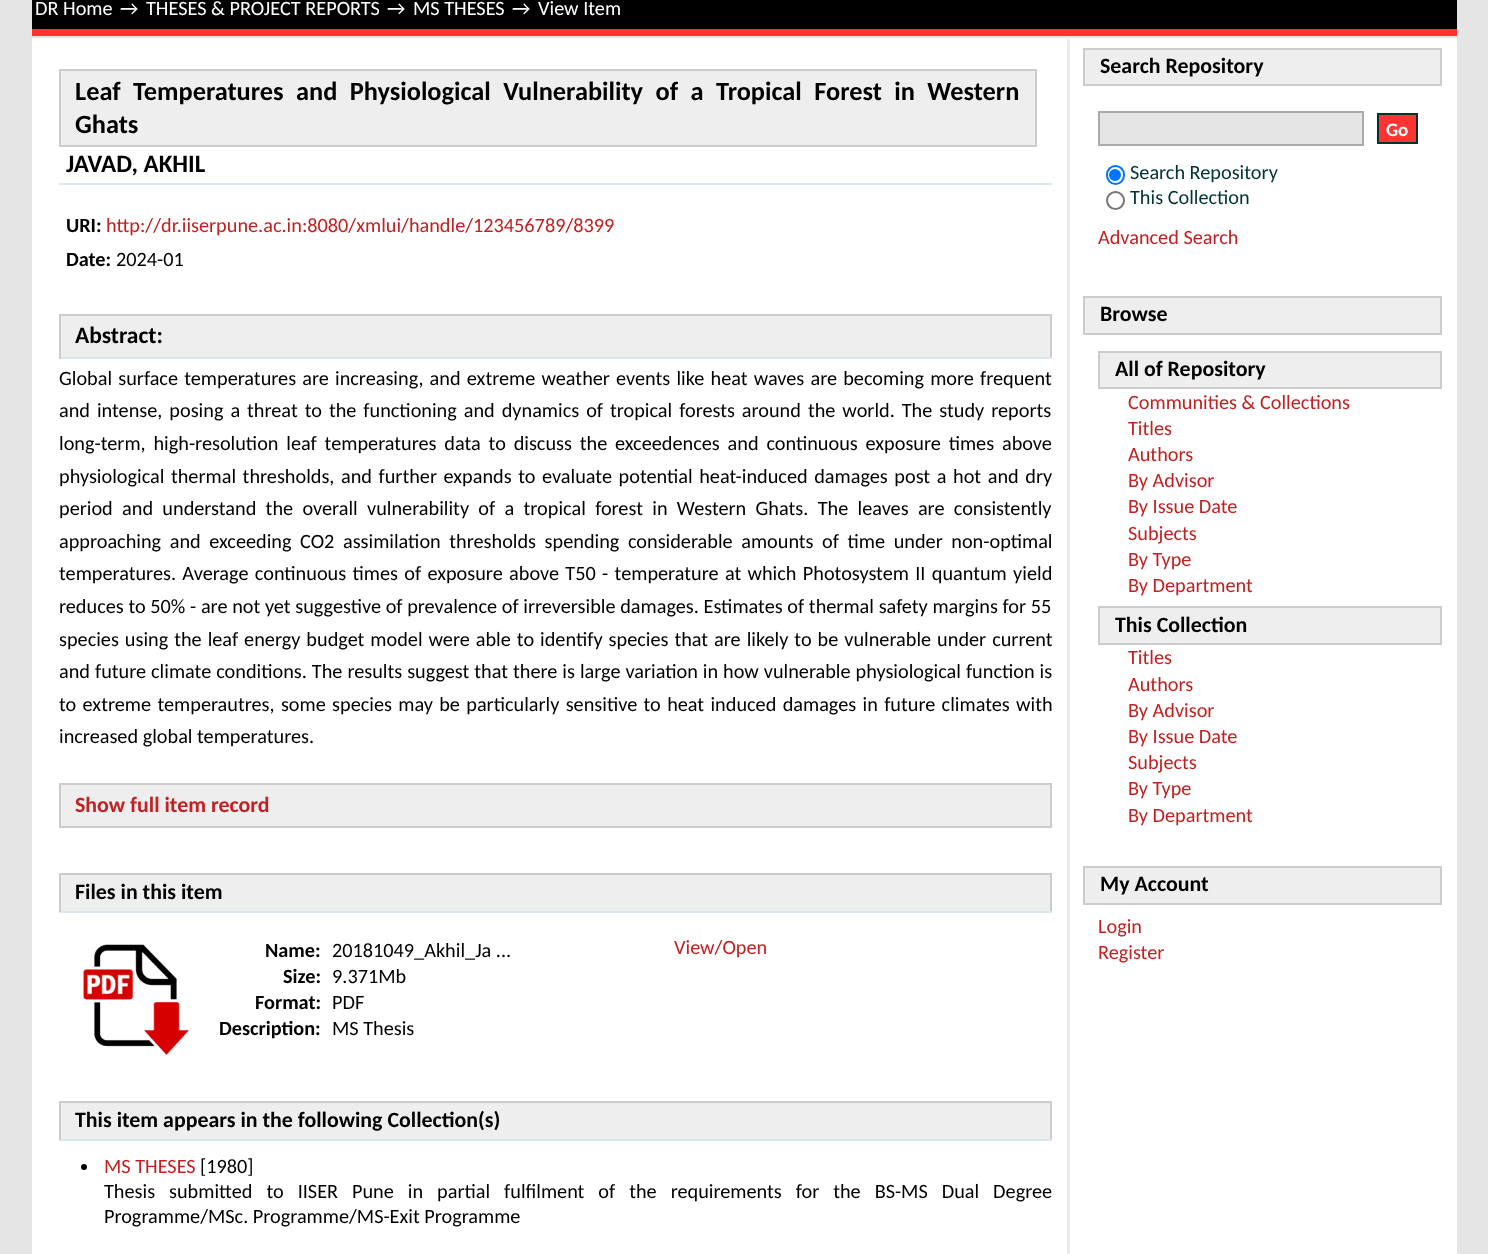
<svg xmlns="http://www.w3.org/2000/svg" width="1488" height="1254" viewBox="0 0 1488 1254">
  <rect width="100%" height="100%" fill="#e5e5e5"/>
  <rect x="32" y="0" width="1425" height="29" fill="#000000"/>
  <rect x="32" y="29" width="1425" height="7" fill="#ff3333"/>
  <text x="35" y="15" font-family="Carlito" font-size="20.25" fill="#ffffff">DR Home</text>
  <text x="120" y="15" font-family="Carlito" font-size="20.25" fill="#ffffff">→</text>
  <text x="146" y="15" font-family="Carlito" font-size="20.25" fill="#ffffff">THESES &amp; PROJECT REPORTS</text>
  <text x="387" y="15" font-family="Carlito" font-size="20.25" fill="#ffffff">→</text>
  <text x="413" y="15" font-family="Carlito" font-size="20.25" fill="#ffffff">MS THESES</text>
  <text x="512" y="15" font-family="Carlito" font-size="20.25" fill="#ffffff">→</text>
  <text x="538" y="15" font-family="Carlito" font-size="20.25" fill="#ffffff">View Item</text>
  <rect x="32" y="38" width="1425" height="1216" fill="#ffffff"/>
  <rect x="1067" y="39" width="3" height="1215" fill="#ebebeb"/>
  <rect x="60" y="70" width="976" height="76" fill="#eeeeee" stroke="#cccccc" stroke-width="2"/>
  <text x="75" y="100" word-spacing="6.5" font-family="Carlito" font-size="26.35" font-weight="bold" fill="#000000">Leaf Temperatures and Physiological Vulnerability of a Tropical Forest in Western</text>
  <text x="75" y="133" font-family="Carlito" font-size="26.35" font-weight="bold" fill="#000000">Ghats</text>
  <rect x="59" y="183" width="993" height="2" fill="#d8e8eb"/>
  <text x="66" y="172" font-family="Carlito" font-size="25" font-weight="bold" fill="#000000">JAVAD, AKHIL</text>
  <text x="66" y="232" font-family="Carlito" font-size="20.25" font-weight="bold" fill="#000000">URI:</text>
  <text x="106" y="232" font-family="Carlito" font-size="20.25" fill="#c22121">http://dr.iiserpune.ac.in:8080/xmlui/handle/123456789/8399</text>
  <text x="66" y="266" font-family="Carlito" font-size="20.25" font-weight="bold" fill="#000000">Date:</text>
  <text x="116" y="266" font-family="Carlito" font-size="20.25" fill="#000000">2024-01</text>
  <rect x="61" y="316" width="989" height="41" fill="#eeeeee"/>
  <rect x="59" y="314" width="993" height="2" fill="#cccccc"/>
  <rect x="1050" y="314" width="2" height="45" fill="#cccccc"/>
  <rect x="59" y="357" width="993" height="2" fill="#d8e8eb"/>
  <rect x="59" y="314" width="2" height="45" fill="#cccccc"/>
  <text x="75" y="343" font-family="Carlito" font-size="23.5" font-weight="bold" fill="#000000">Abstract:</text>
  <text x="59" y="385" word-spacing="1.6" font-family="Carlito" font-size="20.25" fill="#000000">Global surface temperatures are increasing, and extreme weather events like heat waves are becoming more frequent</text>
  <text x="59" y="417" word-spacing="2.4" font-family="Carlito" font-size="20.25" fill="#000000">and intense, posing a threat to the functioning and dynamics of tropical forests around the world. The study reports</text>
  <text x="59" y="450" word-spacing="3.25" font-family="Carlito" font-size="20.25" fill="#000000">long-term, high-resolution leaf temperatures data to discuss the exceedences and continuous exposure times above</text>
  <text x="59" y="483" word-spacing="2" font-family="Carlito" font-size="20.25" fill="#000000">physiological thermal thresholds, and further expands to evaluate potential heat-induced damages post a hot and dry</text>
  <text x="59" y="515" word-spacing="4.75" font-family="Carlito" font-size="20.25" fill="#000000">period and understand the overall vulnerability of a tropical forest in Western Ghats. The leaves are consistently</text>
  <text x="59" y="548" word-spacing="4" font-family="Carlito" font-size="20.25" fill="#000000">approaching and exceeding CO2 assimilation thresholds spending considerable amounts of time under non-optimal</text>
  <text x="59" y="580" word-spacing="1.75" font-family="Carlito" font-size="20.25" fill="#000000">temperatures. Average continuous times of exposure above T50 - temperature at which Photosystem II quantum yield</text>
  <text x="59" y="613" word-spacing="0.1" font-family="Carlito" font-size="20.25" fill="#000000">reduces to 50% - are not yet suggestive of prevalence of irreversible damages. Estimates of thermal safety margins for 55</text>
  <text x="59" y="646" word-spacing="1.4" font-family="Carlito" font-size="20.25" fill="#000000">species using the leaf energy budget model were able to identify species that are likely to be vulnerable under current</text>
  <text x="59" y="678" word-spacing="0.4" font-family="Carlito" font-size="20.25" fill="#000000">and future climate conditions. The results suggest that there is large variation in how vulnerable physiological function is</text>
  <text x="59" y="711" word-spacing="1.75" font-family="Carlito" font-size="20.25" fill="#000000">to extreme temperautres, some species may be particularly sensitive to heat induced damages in future climates with</text>
  <text x="59" y="743" font-family="Carlito" font-size="20.25" fill="#000000">increased global temperatures.</text>
  <rect x="60" y="784" width="991" height="43" fill="#eeeeee" stroke="#cccccc" stroke-width="2"/>
  <text x="75" y="812" font-family="Carlito" font-size="21.9" font-weight="bold" fill="#c22121">Show full item record</text>
  <rect x="61" y="875" width="989" height="36" fill="#eeeeee"/>
  <rect x="59" y="873" width="993" height="2" fill="#cccccc"/>
  <rect x="1050" y="873" width="2" height="39" fill="#cccccc"/>
  <rect x="59" y="911" width="993" height="2" fill="#d8e8eb"/>
  <rect x="59" y="873" width="2" height="39" fill="#cccccc"/>
  <text x="75" y="899" font-family="Carlito" font-size="21.9" font-weight="bold" fill="#000000">Files in this item</text>
  <image x="83" y="944" width="106" height="111" href="img1.png"/>
  <text x="265" y="957" font-family="Carlito" font-size="20.25" font-weight="bold" fill="#000000">Name:</text>
  <text x="332" y="957" font-family="Carlito" font-size="20.25" fill="#000000">20181049_Akhil_Ja ...</text>
  <text x="283" y="983" font-family="Carlito" font-size="20.25" font-weight="bold" fill="#000000">Size:</text>
  <text x="332" y="983" font-family="Carlito" font-size="20.25" fill="#000000">9.371Mb</text>
  <text x="255" y="1009" font-family="Carlito" font-size="20.25" font-weight="bold" fill="#000000">Format:</text>
  <text x="332" y="1009" font-family="Carlito" font-size="20.25" fill="#000000">PDF</text>
  <text x="219" y="1035" font-family="Carlito" font-size="20.25" font-weight="bold" fill="#000000">Description:</text>
  <text x="332" y="1035" font-family="Carlito" font-size="20.25" fill="#000000">MS Thesis</text>
  <text x="674" y="954" font-family="Carlito" font-size="20.25" fill="#c22121">View/Open</text>
  <rect x="61" y="1103" width="989" height="36" fill="#eeeeee"/>
  <rect x="59" y="1101" width="993" height="2" fill="#cccccc"/>
  <rect x="1050" y="1101" width="2" height="39" fill="#cccccc"/>
  <rect x="59" y="1139" width="993" height="2" fill="#d8e8eb"/>
  <rect x="59" y="1101" width="2" height="39" fill="#cccccc"/>
  <text x="75" y="1127" font-family="Carlito" font-size="21.9" font-weight="bold" fill="#000000">This item appears in the following Collection(s)</text>
  <circle cx="84" cy="1167" r="3" fill="#000000"/>
  <text x="104" y="1173" font-family="Carlito" font-size="20.25" fill="#c22121">MS THESES</text>
  <text x="200" y="1173" font-family="Carlito" font-size="20.25" fill="#000000">[1980]</text>
  <text x="104" y="1198" word-spacing="9.4" font-family="Carlito" font-size="20.25" fill="#000000">Thesis submitted to IISER Pune in partial fulfilment of the requirements for the BS-MS Dual Degree</text>
  <text x="104" y="1223" font-family="Carlito" font-size="20.25" fill="#000000">Programme/MSc. Programme/MS-Exit Programme</text>
  <rect x="1084" y="49" width="357" height="36" fill="#eeeeee" stroke="#cccccc" stroke-width="2"/>
  <text x="1100" y="73" font-family="Carlito" font-size="21.9" font-weight="bold" fill="#000000">Search Repository</text>
  <rect x="1099" y="112" width="264" height="33" fill="#e5e5e5" stroke="#aaaaaa" stroke-width="2"/>
  <rect x="1378" y="114" width="39" height="29" fill="#ff3333" stroke="#003333" stroke-width="2"/>
  <text x="1386" y="136" font-family="Carlito" font-size="19" font-weight="bold" fill="#ffffff">Go</text>
  <rect x="1107" y="166" width="17" height="18" rx="8.5" fill="none" stroke="#0075ff" stroke-width="2"/>
  <circle cx="1115" cy="175" r="6" fill="#0075ff"/>
  <text x="1130" y="179" font-family="Carlito" font-size="20.25" fill="#003333">Search Repository</text>
  <circle cx="1115.5" cy="200.5" r="8.5" fill="none" stroke="#767676" stroke-width="2"/>
  <text x="1130" y="204" font-family="Carlito" font-size="20.25" fill="#003333">This Collection</text>
  <text x="1098" y="244" font-family="Carlito" font-size="20.25" fill="#c22121">Advanced Search</text>
  <rect x="1084" y="297" width="357" height="37" fill="#eeeeee" stroke="#cccccc" stroke-width="2"/>
  <text x="1100" y="321" font-family="Carlito" font-size="21.9" font-weight="bold" fill="#000000">Browse</text>
  <rect x="1099" y="352" width="342" height="36" fill="#eeeeee" stroke="#cccccc" stroke-width="2"/>
  <text x="1115" y="376" font-family="Carlito" font-size="21.9" font-weight="bold" fill="#000000">All of Repository</text>
  <text x="1128" y="409" font-family="Carlito" font-size="20.25" fill="#c22121">Communities &amp; Collections</text>
  <text x="1128" y="435" font-family="Carlito" font-size="20.25" fill="#c22121">Titles</text>
  <text x="1128" y="461" font-family="Carlito" font-size="20.25" fill="#c22121">Authors</text>
  <text x="1128" y="487" font-family="Carlito" font-size="20.25" fill="#c22121">By Advisor</text>
  <text x="1128" y="513" font-family="Carlito" font-size="20.25" fill="#c22121">By Issue Date</text>
  <text x="1128" y="540" font-family="Carlito" font-size="20.25" fill="#c22121">Subjects</text>
  <text x="1128" y="566" font-family="Carlito" font-size="20.25" fill="#c22121">By Type</text>
  <text x="1128" y="592" font-family="Carlito" font-size="20.25" fill="#c22121">By Department</text>
  <rect x="1099" y="607" width="342" height="37" fill="#eeeeee" stroke="#cccccc" stroke-width="2"/>
  <text x="1115" y="632" font-family="Carlito" font-size="21.9" font-weight="bold" fill="#000000">This Collection</text>
  <text x="1128" y="664" font-family="Carlito" font-size="20.25" fill="#c22121">Titles</text>
  <text x="1128" y="691" font-family="Carlito" font-size="20.25" fill="#c22121">Authors</text>
  <text x="1128" y="717" font-family="Carlito" font-size="20.25" fill="#c22121">By Advisor</text>
  <text x="1128" y="743" font-family="Carlito" font-size="20.25" fill="#c22121">By Issue Date</text>
  <text x="1128" y="769" font-family="Carlito" font-size="20.25" fill="#c22121">Subjects</text>
  <text x="1128" y="795" font-family="Carlito" font-size="20.25" fill="#c22121">By Type</text>
  <text x="1128" y="822" font-family="Carlito" font-size="20.25" fill="#c22121">By Department</text>
  <rect x="1084" y="867" width="357" height="37" fill="#eeeeee" stroke="#cccccc" stroke-width="2"/>
  <text x="1100" y="891" font-family="Carlito" font-size="21.9" font-weight="bold" fill="#000000">My Account</text>
  <text x="1098" y="933" font-family="Carlito" font-size="20.25" fill="#c22121">Login</text>
  <text x="1098" y="959" font-family="Carlito" font-size="20.25" fill="#c22121">Register</text>
</svg>
